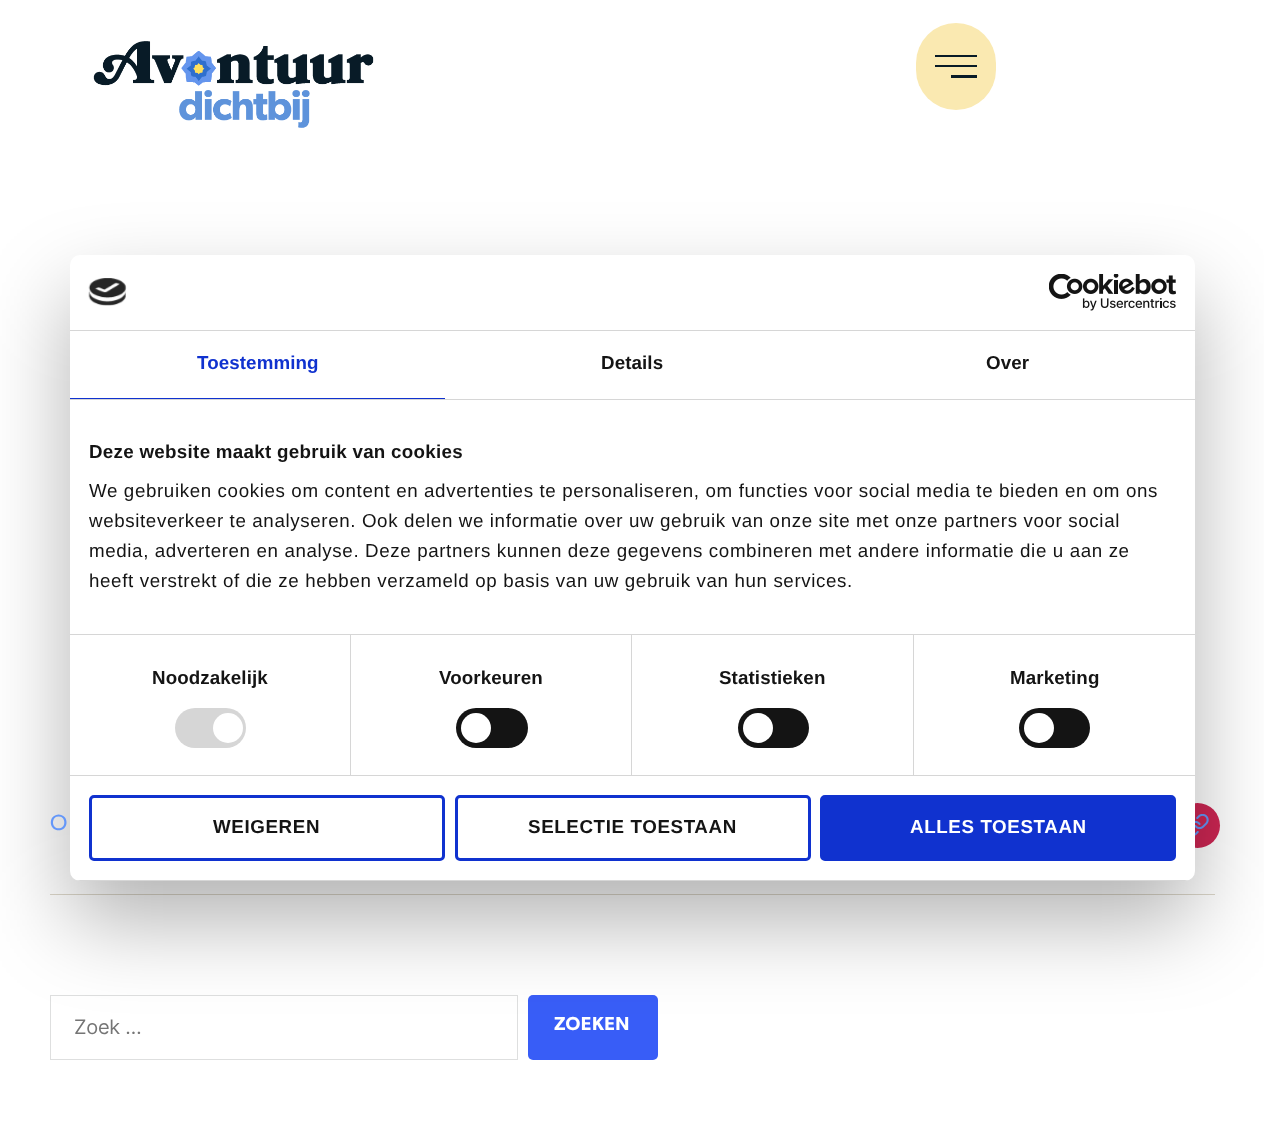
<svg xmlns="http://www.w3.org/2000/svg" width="1264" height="1135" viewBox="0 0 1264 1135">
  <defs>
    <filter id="blur1" x="-50%" y="-200%" width="200%" height="500%"><feGaussianBlur stdDeviation="42.5"/></filter>
    <clipPath id="clip1"><rect x="70" y="255" width="1125" height="626" rx="10"/></clipPath>
  </defs>
  <rect width="100%" height="100%" fill="#ffffff"/>
  <image x="93" y="41" width="281" height="87" href="img1.png"/>
  <rect x="916" y="23" width="80" height="87" rx="40" fill="#fae9b1"/>
  <rect x="935" y="55" width="42" height="2" fill="#081b27"/>
  <rect x="935" y="65" width="42" height="2" fill="#081b27"/>
  <rect x="951" y="75" width="26" height="3" fill="#081b27"/>
  <rect x="50" y="894" width="1165" height="1" fill="#dcd7ca"/>
  <circle cx="1197.5" cy="825.5" r="22.5" fill="#cd2653"/>
  <image x="1195" y="814" width="14" height="22" href="img4.png"/>
  <rect x="50.5" y="995.5" width="467" height="64" fill="none" stroke="#dedfdf"/>
  <rect x="528" y="995" width="130" height="65" rx="5" fill="#385df7"/>
  <rect x="70" y="295" width="1125" height="626" rx="10" fill="#000000" fill-opacity="0.3" filter="url(#blur1)"/>
  <rect x="70" y="255" width="1125" height="626" rx="10" fill="#ffffff"/>
  <rect x="70" y="330" width="1125" height="1" fill="#d6d6d6"/>
  <image x="88" y="278" width="39" height="28" href="img2.png"/>
  <image x="1049" y="274" width="127" height="37" href="img3.png"/>
  <rect x="70" y="399" width="1125" height="1" fill="#d6d6d6"/>
  <rect x="70" y="398" width="375" height="1" fill="#1032cf"/>
  <text x="197" y="369" font-family="Liberation Sans" font-size="18.75" font-weight="bold" letter-spacing="0.1" fill="#1032cf">Toestemming</text>
  <text x="601" y="369" font-family="Liberation Sans" font-size="18.75" font-weight="bold" letter-spacing="0.1" fill="#141414">Details</text>
  <text x="986" y="369" font-family="Liberation Sans" font-size="18.75" font-weight="bold" letter-spacing="0.1" fill="#141414">Over</text>
  <rect x="70" y="634" width="1125" height="1" fill="#d6d6d6"/>
  <text x="89" y="458" font-family="Liberation Sans" font-size="18.75" font-weight="bold" letter-spacing="0.3" fill="#141414">Deze website maakt gebruik van cookies</text>
  <text x="89" y="497" font-family="Liberation Sans" font-size="18.75" letter-spacing="0.62" fill="#141414">We gebruiken cookies om content en advertenties te personaliseren, om functies voor social media te bieden en om ons</text>
  <text x="89" y="527" font-family="Liberation Sans" font-size="18.75" letter-spacing="0.62" fill="#141414">websiteverkeer te analyseren. Ook delen we informatie over uw gebruik van onze site met onze partners voor social</text>
  <text x="89" y="557" font-family="Liberation Sans" font-size="18.75" letter-spacing="0.62" fill="#141414">media, adverteren en analyse. Deze partners kunnen deze gegevens combineren met andere informatie die u aan ze</text>
  <text x="89" y="587" font-family="Liberation Sans" font-size="18.75" letter-spacing="0.62" fill="#141414">heeft verstrekt of die ze hebben verzameld op basis van uw gebruik van hun services.</text>
  <rect x="70" y="775" width="1125" height="1" fill="#d6d6d6"/>
  <rect x="350" y="635" width="1" height="140" fill="#d6d6d6"/>
  <text x="152" y="684" font-family="Liberation Sans" font-size="18.75" font-weight="bold" letter-spacing="0.1" fill="#141414">Noodzakelijk</text>
  <rect x="175" y="708" width="71" height="40" rx="20" fill="#d6d6d6"/>
  <circle cx="228" cy="728" r="15" fill="#ffffff"/>
  <rect x="631" y="635" width="1" height="140" fill="#d6d6d6"/>
  <text x="439" y="684" font-family="Liberation Sans" font-size="18.75" font-weight="bold" letter-spacing="0.1" fill="#141414">Voorkeuren</text>
  <rect x="456" y="708" width="72" height="40" rx="20" fill="#141414"/>
  <circle cx="476" cy="728" r="15" fill="#ffffff"/>
  <rect x="913" y="635" width="1" height="140" fill="#d6d6d6"/>
  <text x="719" y="684" font-family="Liberation Sans" font-size="18.75" font-weight="bold" letter-spacing="0.1" fill="#141414">Statistieken</text>
  <rect x="738" y="708" width="71" height="40" rx="20" fill="#141414"/>
  <circle cx="758" cy="728" r="15" fill="#ffffff"/>
  <text x="1010" y="684" font-family="Liberation Sans" font-size="18.75" font-weight="bold" letter-spacing="0.1" fill="#141414">Marketing</text>
  <rect x="1019" y="708" width="71" height="40" rx="20" fill="#141414"/>
  <circle cx="1039" cy="728" r="15" fill="#ffffff"/>
  <g clip-path="url(#clip1)">
    <rect x="70" y="880" width="1125" height="1" fill="#d6d6d6"/>
  </g>
  <rect x="90.5" y="796.5" width="353" height="63" rx="3.5" fill="none" stroke="#1032cf" stroke-width="3"/>
  <text x="213" y="833" font-family="Liberation Sans" font-size="18.75" font-weight="bold" letter-spacing="0.62" fill="#141414">WEIGEREN</text>
  <rect x="456.5" y="796.5" width="353" height="63" rx="3.5" fill="none" stroke="#1032cf" stroke-width="3"/>
  <text x="528" y="833" font-family="Liberation Sans" font-size="18.75" font-weight="bold" letter-spacing="0.62" fill="#141414">SELECTIE TOESTAAN</text>
  <rect x="821.5" y="796.5" width="353" height="63" rx="3.5" fill="#1032cf" stroke="#1032cf" stroke-width="3"/>
  <text x="910" y="833" font-family="Liberation Sans" font-size="18.75" font-weight="bold" letter-spacing="0.62" fill="#ffffff">ALLES TOESTAAN</text>
  <text x="50" y="830" font-family="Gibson" font-size="22" letter-spacing="-1" fill="#6497f9">O</text>
  <text x="74" y="1034" font-family="Inter" font-size="20" letter-spacing="-0.25" fill="#757575">Zoek …</text>
  <text x="554" y="1030" font-family="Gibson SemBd" font-size="18.75" font-weight="600" letter-spacing="0.62" fill="#ffffff">ZOEKEN</text>
</svg>
